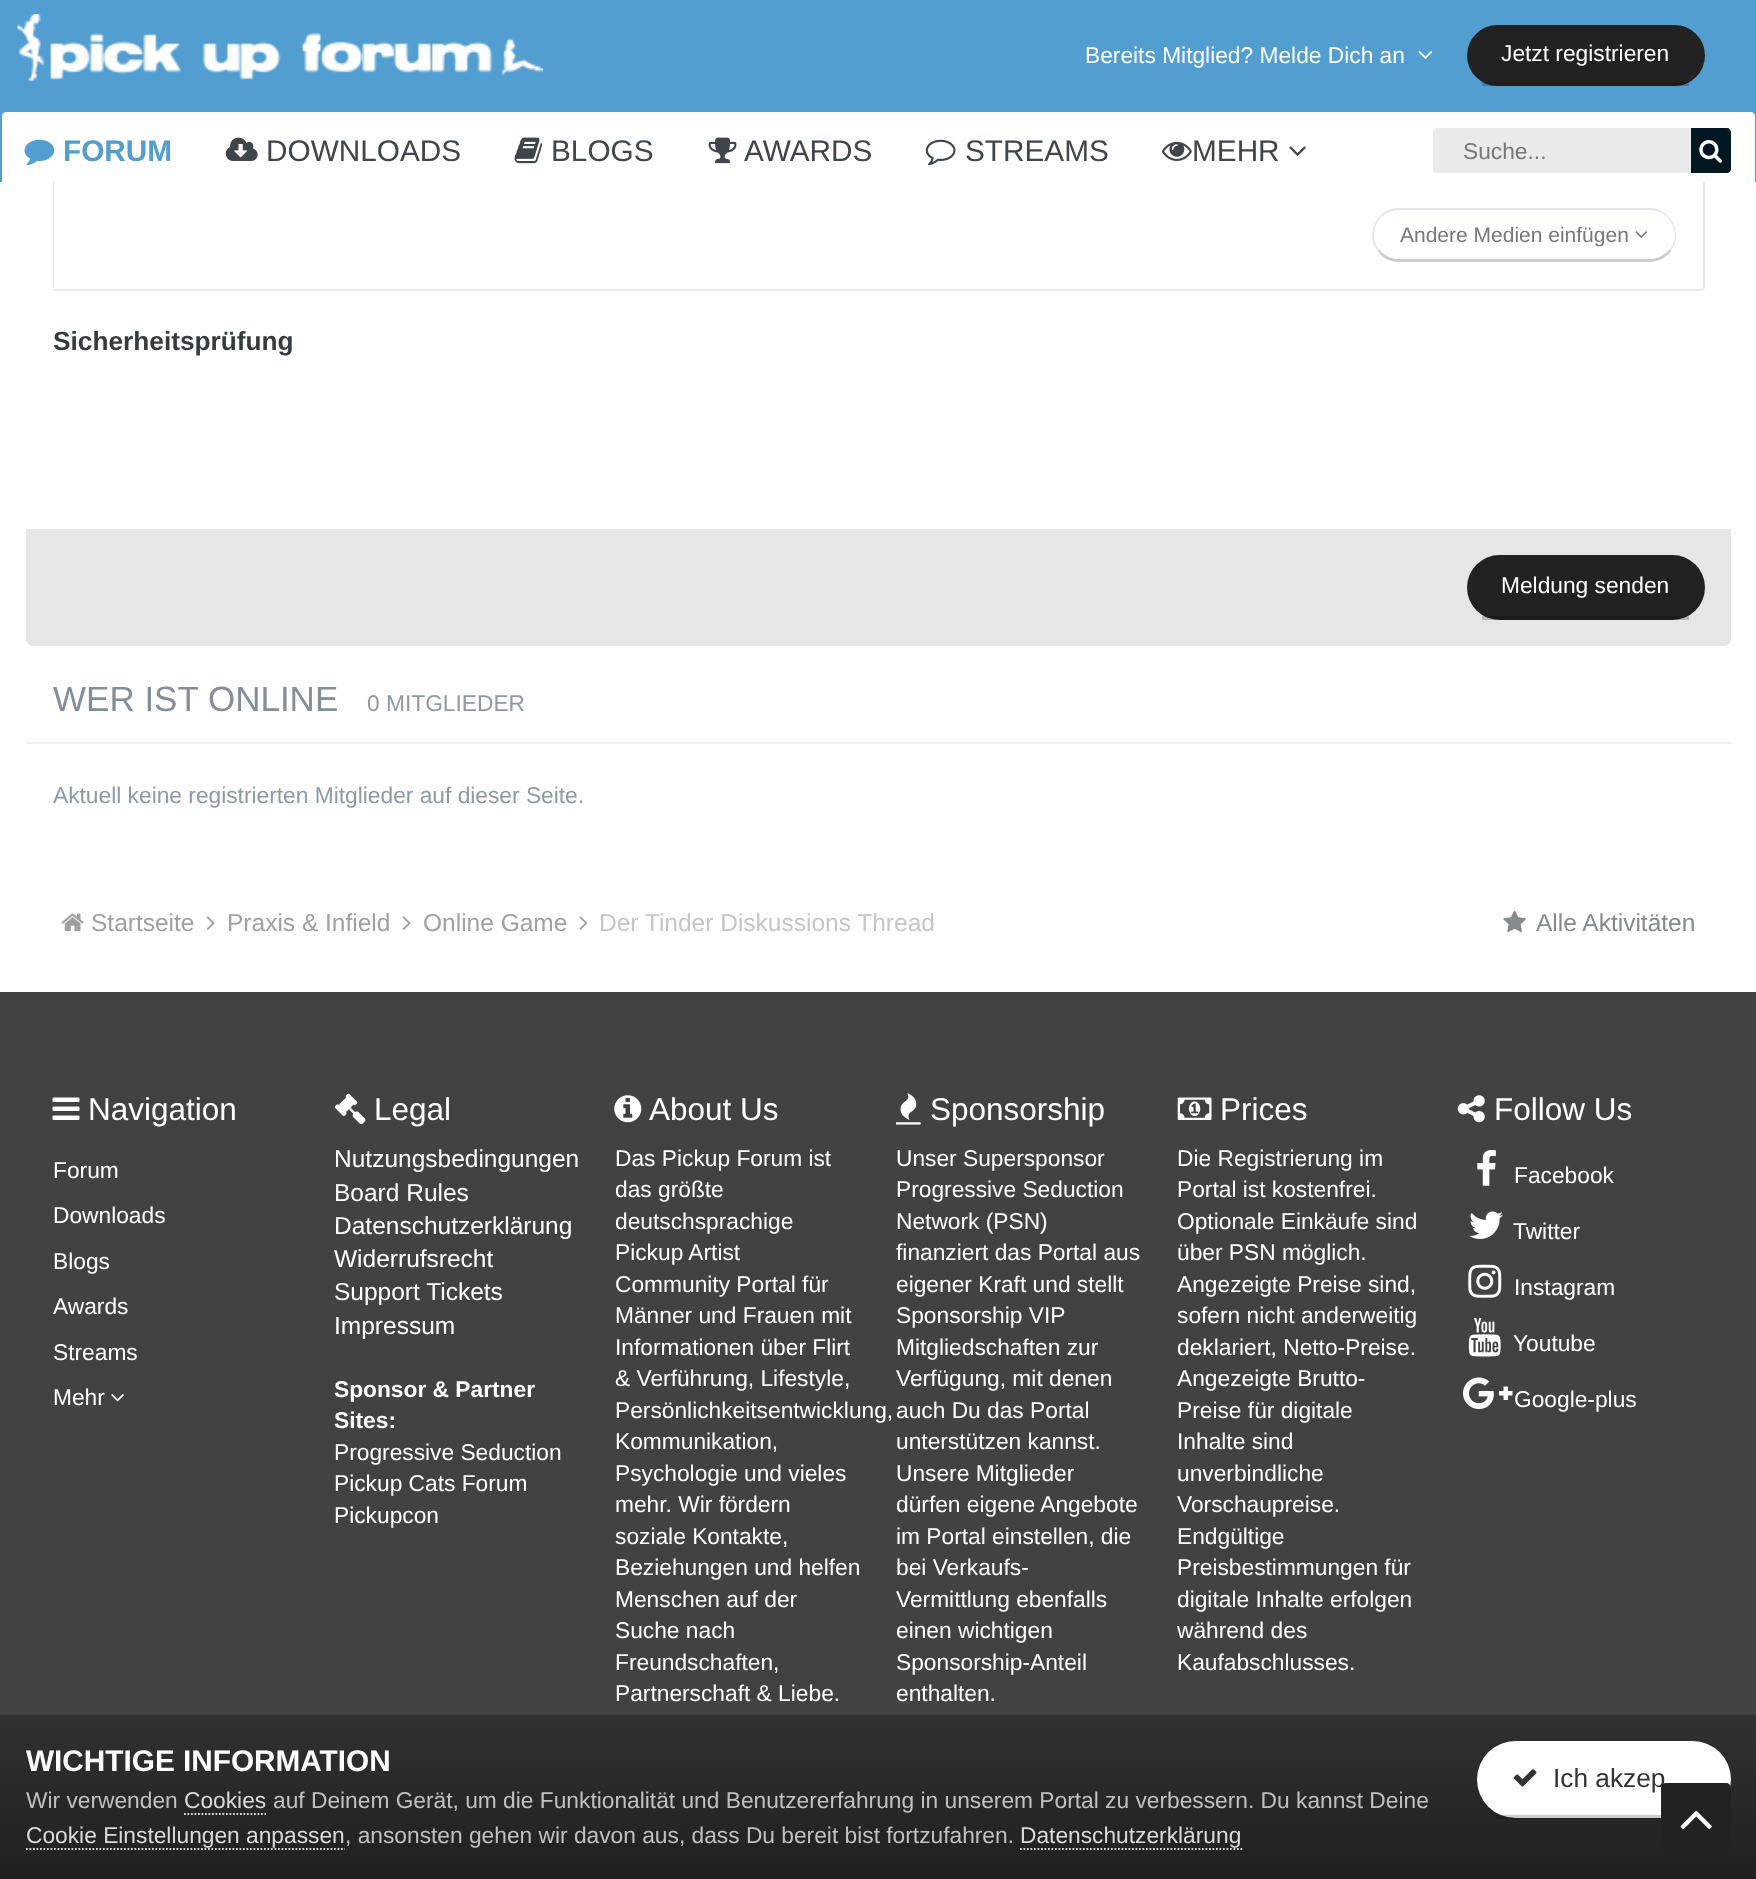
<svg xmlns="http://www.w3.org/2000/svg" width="1756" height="1879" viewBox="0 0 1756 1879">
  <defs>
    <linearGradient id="g1" gradientUnits="userSpaceOnUse" x1="879" y1="1715" x2="879" y2="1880"><stop offset="0" stop-color="#313131"/><stop offset="1" stop-color="#202020"/></linearGradient>
  </defs>
  <rect width="100%" height="100%" fill="#ffffff"/>
  <rect x="54" y="87" width="1650" height="203" rx="3" fill="none" stroke="#e6e8eb" stroke-width="2"/>
  <rect x="0" y="0" width="1756" height="182" fill="#539ed1"/>
  <image x="17" y="14" width="526" height="69" href="img1.png"/>
  <text x="1085" y="63" font-family="Liberation Sans" font-size="22.75" fill="#ffffff">Bereits Mitglied? Melde Dich an</text>
  <image x="1418" y="51" width="15" height="8" href="img2.png"/>
  <rect x="1467" y="25" width="238" height="61" rx="30.5" fill="#222222"/>
  <rect x="1482" y="82" width="207" height="4" fill="#000000" fill-opacity="0.2"/>
  <text x="1501" y="61" font-family="Liberation Sans" font-size="22.75" fill="#ffffff">Jetzt registrieren</text>
  <path d="M6 112H1751C1753 112 1755 114 1755 116V182H2V116C2 114 4 112 6 112Z" fill="#ffffff"/>
  <image x="24" y="139" width="31" height="27" href="img3.png"/>
  <text x="63" y="161" font-family="Liberation Sans" font-size="29.75" font-weight="bold" fill="#539ed1">FORUM</text>
  <image x="225" y="137" width="33" height="24" href="img4.png"/>
  <text x="266" y="161" font-family="Liberation Sans" font-size="29.75" fill="#3f454a">DOWNLOADS</text>
  <image x="514" y="137" width="29" height="27" href="img5.png"/>
  <text x="551" y="161" font-family="Liberation Sans" font-size="29.75" fill="#3f454a">BLOGS</text>
  <image x="708" y="137" width="29" height="27" href="img6.png"/>
  <text x="744" y="161" font-family="Liberation Sans" font-size="29.75" fill="#3f454a">AWARDS</text>
  <image x="925" y="139" width="31" height="27" href="img7.png"/>
  <text x="965" y="161" font-family="Liberation Sans" font-size="29.75" fill="#3f454a">STREAMS</text>
  <image x="1162" y="141" width="30" height="20" href="img8.png"/>
  <text x="1192" y="161" font-family="Liberation Sans" font-size="29.75" fill="#3f454a">MEHR</text>
  <image x="1289" y="146" width="17" height="10" href="img9.png"/>
  <rect x="1433" y="128" width="298" height="45" rx="4" fill="#eaeaea"/>
  <text x="1463" y="159" font-family="Liberation Sans" font-size="22.75" fill="#777777">Suche...</text>
  <path d="M1691 128H1727C1729 128 1731 130 1731 132V169C1731 171 1729 173 1727 173H1691Z" fill="#021721"/>
  <image x="1699" y="140" width="23" height="23" href="img10.png"/>
  <rect x="54" y="182" width="1649" height="107" fill="#ffffff"/>
  <path d="M1399 210C1392 210 1386 213 1381 217L1380 216C1384 212 1389 209 1395 208H1653C1659 209 1664 212 1668 216L1667 217C1663 213 1656 210 1649 210Z" fill="#e4e7f0"/>
  <path d="M1668.5 216.5C1677.5 225.5 1678.5 240.5 1671 251L1670 249C1677.5 239.5 1676 226 1667.5 217.5Z" fill="#e4e7f0"/>
  <path d="M1671 251C1666 258 1658 262 1649 262H1399C1390 262 1382 258 1378 251L1379 249C1383 255 1391 259 1399 259H1649C1657 259 1665 255 1670 249Z" fill="#000000" fill-opacity="0.2"/>
  <path d="M1377.5 251.5C1369.5 241 1370.5 225.5 1380 216L1381 217.5C1373 226 1371.5 239.5 1378.5 249Z" fill="#e4e7f0"/>
  <text x="1400" y="242" font-family="Liberation Sans" font-size="21" fill="#777777">Andere Medien einfügen</text>
  <image x="1635" y="231" width="12" height="7" href="img11.png"/>
  <text x="53" y="350" font-family="Liberation Sans" font-size="26.25" font-weight="bold" fill="#353c41">Sicherheitsprüfung</text>
  <path d="M26 529H1731V639C1731 643 1728 646 1724 646H33C29 646 26 643 26 639Z" fill="#e6e6e6"/>
  <rect x="1467" y="555" width="238" height="65" rx="32.5" fill="#222222"/>
  <rect x="1482" y="616" width="207" height="4" fill="#000000" fill-opacity="0.2"/>
  <text x="1501" y="593" font-family="Liberation Sans" font-size="22.75" fill="#ffffff">Meldung senden</text>
  <rect x="26" y="742" width="1705" height="2" fill="#eeeeee"/>
  <text x="53" y="711" font-family="Liberation Sans" font-size="35" fill="#828e99">WER IST ONLINE</text>
  <text x="367" y="711" font-family="Liberation Sans" font-size="22.75" fill="#8d9aa6">0 MITGLIEDER</text>
  <text x="53" y="803" font-family="Liberation Sans" font-size="22.75" fill="#8d9aa6">Aktuell keine registrierten Mitglieder auf dieser Seite.</text>
  <image x="61" y="913" width="23" height="18" href="img12.png"/>
  <text x="91" y="931" font-family="Liberation Sans" font-size="24.5" fill="#a0a0a0">Startseite</text>
  <image x="206" y="916" width="9" height="14" href="img13.png"/>
  <text x="227" y="931" font-family="Liberation Sans" font-size="24.5" fill="#a0a0a0">Praxis &amp; Infield</text>
  <image x="402" y="916" width="9" height="14" href="img13.png"/>
  <text x="423" y="931" font-family="Liberation Sans" font-size="24.5" fill="#a0a0a0">Online Game</text>
  <image x="579" y="916" width="9" height="14" href="img14.png"/>
  <text x="599" y="931" font-family="Liberation Sans" font-size="24.5" fill="#c6c6c6">Der Tinder Diskussions Thread</text>
  <image x="1503" y="910" width="23" height="23" href="img15.png"/>
  <text x="1536" y="931" font-family="Liberation Sans" font-size="24.5" fill="#868a8d">Alle Aktivitäten</text>
  <rect x="0" y="992" width="1756" height="723" fill="#424242"/>
  <image x="52" y="1097" width="28" height="23" href="img16.png"/>
  <text x="88" y="1120" font-family="Liberation Sans" font-size="31.5" fill="#ffffff">Navigation</text>
  <text x="53" y="1178" font-family="Liberation Sans" font-size="22.75" fill="#ffffff">Forum</text>
  <text x="53" y="1223" font-family="Liberation Sans" font-size="22.75" fill="#ffffff">Downloads</text>
  <text x="53" y="1269" font-family="Liberation Sans" font-size="22.75" fill="#ffffff">Blogs</text>
  <text x="53" y="1314" font-family="Liberation Sans" font-size="22.75" fill="#ffffff">Awards</text>
  <text x="53" y="1360" font-family="Liberation Sans" font-size="22.75" fill="#ffffff">Streams</text>
  <text x="53" y="1405" font-family="Liberation Sans" font-size="22.75" fill="#ffffff">Mehr</text>
  <image x="111" y="1394" width="13" height="8" href="img17.png"/>
  <image x="335" y="1093" width="31" height="32" href="img18.png"/>
  <text x="374" y="1120" font-family="Liberation Sans" font-size="31.5" fill="#ffffff">Legal</text>
  <text x="334" y="1167" font-family="Liberation Sans" font-size="24.5" fill="#ffffff">Nutzungsbedingungen</text>
  <text x="334" y="1201" font-family="Liberation Sans" font-size="24.5" fill="#ffffff">Board Rules</text>
  <text x="334" y="1234" font-family="Liberation Sans" font-size="24.5" fill="#ffffff">Datenschutzerklärung</text>
  <text x="334" y="1267" font-family="Liberation Sans" font-size="24.5" fill="#ffffff">Widerrufsrecht</text>
  <text x="334" y="1300" font-family="Liberation Sans" font-size="24.5" fill="#ffffff">Support Tickets</text>
  <text x="334" y="1334" font-family="Liberation Sans" font-size="24.5" fill="#ffffff">Impressum</text>
  <text x="334" y="1397" font-family="Liberation Sans" font-size="22.75" font-weight="bold" fill="#ffffff">Sponsor &amp; Partner</text>
  <text x="334" y="1428" font-family="Liberation Sans" font-size="22.75" font-weight="bold" fill="#ffffff">Sites:</text>
  <text x="334" y="1460" font-family="Liberation Sans" font-size="22.75" fill="#ffffff">Progressive Seduction</text>
  <text x="334" y="1491" font-family="Liberation Sans" font-size="22.75" fill="#ffffff">Pickup Cats Forum</text>
  <text x="334" y="1523" font-family="Liberation Sans" font-size="22.75" fill="#ffffff">Pickupcon</text>
  <image x="614" y="1095" width="28" height="28" href="img19.png"/>
  <text x="649" y="1120" font-family="Liberation Sans" font-size="31.5" fill="#ffffff">About Us</text>
  <text x="615" y="1166" font-family="Liberation Sans" font-size="22.75" fill="#ffffff">Das Pickup Forum ist</text>
  <text x="615" y="1197" font-family="Liberation Sans" font-size="22.75" fill="#ffffff">das größte</text>
  <text x="615" y="1229" font-family="Liberation Sans" font-size="22.75" fill="#ffffff">deutschsprachige</text>
  <text x="615" y="1260" font-family="Liberation Sans" font-size="22.75" fill="#ffffff">Pickup Artist</text>
  <text x="615" y="1292" font-family="Liberation Sans" font-size="22.75" fill="#ffffff">Community Portal für</text>
  <text x="615" y="1323" font-family="Liberation Sans" font-size="22.75" fill="#ffffff">Männer und Frauen mit</text>
  <text x="615" y="1355" font-family="Liberation Sans" font-size="22.75" fill="#ffffff">Informationen über Flirt</text>
  <text x="615" y="1386" font-family="Liberation Sans" font-size="22.75" fill="#ffffff">&amp; Verführung, Lifestyle,</text>
  <text x="615" y="1418" font-family="Liberation Sans" font-size="22.75" fill="#ffffff">Persönlichkeitsentwicklung,</text>
  <text x="615" y="1449" font-family="Liberation Sans" font-size="22.75" fill="#ffffff">Kommunikation,</text>
  <text x="615" y="1481" font-family="Liberation Sans" font-size="22.75" fill="#ffffff">Psychologie und vieles</text>
  <text x="615" y="1512" font-family="Liberation Sans" font-size="22.75" fill="#ffffff">mehr. Wir fördern</text>
  <text x="615" y="1544" font-family="Liberation Sans" font-size="22.75" fill="#ffffff">soziale Kontakte,</text>
  <text x="615" y="1575" font-family="Liberation Sans" font-size="22.75" fill="#ffffff">Beziehungen und helfen</text>
  <text x="615" y="1607" font-family="Liberation Sans" font-size="22.75" fill="#ffffff">Menschen auf der</text>
  <text x="615" y="1638" font-family="Liberation Sans" font-size="22.75" fill="#ffffff">Suche nach</text>
  <text x="615" y="1670" font-family="Liberation Sans" font-size="22.75" fill="#ffffff">Freundschaften,</text>
  <text x="615" y="1701" font-family="Liberation Sans" font-size="22.75" fill="#ffffff">Partnerschaft &amp; Liebe.</text>
  <image x="896" y="1093" width="25" height="32" href="img20.png"/>
  <text x="930" y="1120" font-family="Liberation Sans" font-size="31.5" fill="#ffffff">Sponsorship</text>
  <text x="896" y="1166" font-family="Liberation Sans" font-size="22.75" fill="#ffffff">Unser Supersponsor</text>
  <text x="896" y="1197" font-family="Liberation Sans" font-size="22.75" fill="#ffffff">Progressive Seduction</text>
  <text x="896" y="1229" font-family="Liberation Sans" font-size="22.75" fill="#ffffff">Network (PSN)</text>
  <text x="896" y="1260" font-family="Liberation Sans" font-size="22.75" fill="#ffffff">finanziert das Portal aus</text>
  <text x="896" y="1292" font-family="Liberation Sans" font-size="22.75" fill="#ffffff">eigener Kraft und stellt</text>
  <text x="896" y="1323" font-family="Liberation Sans" font-size="22.75" fill="#ffffff">Sponsorship VIP</text>
  <text x="896" y="1355" font-family="Liberation Sans" font-size="22.75" fill="#ffffff">Mitgliedschaften zur</text>
  <text x="896" y="1386" font-family="Liberation Sans" font-size="22.75" fill="#ffffff">Verfügung, mit denen</text>
  <text x="896" y="1418" font-family="Liberation Sans" font-size="22.75" fill="#ffffff">auch Du das Portal</text>
  <text x="896" y="1449" font-family="Liberation Sans" font-size="22.75" fill="#ffffff">unterstützen kannst.</text>
  <text x="896" y="1481" font-family="Liberation Sans" font-size="22.75" fill="#ffffff">Unsere Mitglieder</text>
  <text x="896" y="1512" font-family="Liberation Sans" font-size="22.75" fill="#ffffff">dürfen eigene Angebote</text>
  <text x="896" y="1544" font-family="Liberation Sans" font-size="22.75" fill="#ffffff">im Portal einstellen, die</text>
  <text x="896" y="1575" font-family="Liberation Sans" font-size="22.75" fill="#ffffff">bei Verkaufs-</text>
  <text x="896" y="1607" font-family="Liberation Sans" font-size="22.75" fill="#ffffff">Vermittlung ebenfalls</text>
  <text x="896" y="1638" font-family="Liberation Sans" font-size="22.75" fill="#ffffff">einen wichtigen</text>
  <text x="896" y="1670" font-family="Liberation Sans" font-size="22.75" fill="#ffffff">Sponsorship-Anteil</text>
  <text x="896" y="1701" font-family="Liberation Sans" font-size="22.75" fill="#ffffff">enthalten.</text>
  <image x="1177" y="1097" width="35" height="23" href="img21.png"/>
  <text x="1220" y="1120" font-family="Liberation Sans" font-size="31.5" fill="#ffffff">Prices</text>
  <text x="1177" y="1166" font-family="Liberation Sans" font-size="22.75" fill="#ffffff">Die Registrierung im</text>
  <text x="1177" y="1197" font-family="Liberation Sans" font-size="22.75" fill="#ffffff">Portal ist kostenfrei.</text>
  <text x="1177" y="1229" font-family="Liberation Sans" font-size="22.75" fill="#ffffff">Optionale Einkäufe sind</text>
  <text x="1177" y="1260" font-family="Liberation Sans" font-size="22.75" fill="#ffffff">über PSN möglich.</text>
  <text x="1177" y="1292" font-family="Liberation Sans" font-size="22.75" fill="#ffffff">Angezeigte Preise sind,</text>
  <text x="1177" y="1323" font-family="Liberation Sans" font-size="22.75" fill="#ffffff">sofern nicht anderweitig</text>
  <text x="1177" y="1355" font-family="Liberation Sans" font-size="22.75" fill="#ffffff">deklariert, Netto-Preise.</text>
  <text x="1177" y="1386" font-family="Liberation Sans" font-size="22.75" fill="#ffffff">Angezeigte Brutto-</text>
  <text x="1177" y="1418" font-family="Liberation Sans" font-size="22.75" fill="#ffffff">Preise für digitale</text>
  <text x="1177" y="1449" font-family="Liberation Sans" font-size="22.75" fill="#ffffff">Inhalte sind</text>
  <text x="1177" y="1481" font-family="Liberation Sans" font-size="22.75" fill="#ffffff">unverbindliche</text>
  <text x="1177" y="1512" font-family="Liberation Sans" font-size="22.75" fill="#ffffff">Vorschaupreise.</text>
  <text x="1177" y="1544" font-family="Liberation Sans" font-size="22.75" fill="#ffffff">Endgültige</text>
  <text x="1177" y="1575" font-family="Liberation Sans" font-size="22.75" fill="#ffffff">Preisbestimmungen für</text>
  <text x="1177" y="1607" font-family="Liberation Sans" font-size="22.75" fill="#ffffff">digitale Inhalte erfolgen</text>
  <text x="1177" y="1638" font-family="Liberation Sans" font-size="22.75" fill="#ffffff">während des</text>
  <text x="1177" y="1670" font-family="Liberation Sans" font-size="22.75" fill="#ffffff">Kaufabschlusses.</text>
  <image x="1457" y="1095" width="28" height="28" href="img22.png"/>
  <text x="1494" y="1120" font-family="Liberation Sans" font-size="31.5" fill="#ffffff">Follow Us</text>
  <image x="1477" y="1150" width="19" height="36" href="img23.png"/>
  <text x="1514" y="1183" font-family="Liberation Sans" font-size="22.75" fill="#ffffff">Facebook</text>
  <image x="1469" y="1211" width="34" height="28" href="img24.png"/>
  <text x="1513" y="1239" font-family="Liberation Sans" font-size="22.75" fill="#ffffff">Twitter</text>
  <image x="1468" y="1264" width="34" height="34" href="img25.png"/>
  <text x="1514" y="1295" font-family="Liberation Sans" font-size="22.75" fill="#ffffff">Instagram</text>
  <image x="1468" y="1318" width="33" height="39" href="img26.png"/>
  <text x="1513" y="1351" font-family="Liberation Sans" font-size="22.75" fill="#ffffff">Youtube</text>
  <image x="1463" y="1377" width="50" height="32" href="img27.png"/>
  <text x="1514" y="1407" font-family="Liberation Sans" font-size="22.75" fill="#ffffff">Google-plus</text>
  <rect x="0" y="1715" width="1756" height="164" fill="url(#g1)"/>
  <text x="26" y="1771" font-family="Liberation Sans" font-size="29.75" font-weight="bold" fill="#ffffff">WICHTIGE INFORMATION</text>
  <text x="26" y="1808" font-family="Liberation Sans" font-size="22.75" fill="#c0c0c0">Wir verwenden</text>
  <text x="184" y="1808" font-family="Liberation Sans" font-size="22.75" fill="#dadada">Cookies</text>
  <path d="M184 1814H266" fill="none" stroke="#dadada" stroke-width="1.8" stroke-dasharray="1.75 1.75"/>
  <text x="273" y="1808" font-family="Liberation Sans" font-size="22.75" fill="#c0c0c0">auf Deinem Gerät, um die Funktionalität und Benutzererfahrung in unserem Portal zu verbessern. Du kannst Deine</text>
  <text x="26" y="1843" font-family="Liberation Sans" font-size="22.75" fill="#dadada">Cookie Einstellungen anpassen</text>
  <path d="M26 1849H345" fill="none" stroke="#dadada" stroke-width="1.8" stroke-dasharray="1.75 1.75"/>
  <text x="345" y="1843" font-family="Liberation Sans" font-size="22.75" fill="#c0c0c0">, ansonsten gehen wir davon aus, dass Du bereit bist fortzufahren.</text>
  <text x="1020" y="1843" font-family="Liberation Sans" font-size="22.75" fill="#dadada">Datenschutzerklärung</text>
  <path d="M1020 1849H1242.5" fill="none" stroke="#dadada" stroke-width="1.8" stroke-dasharray="1.75 1.75"/>
  <rect x="1477" y="1741" width="254" height="77" rx="38.5" fill="#ffffff"/>
  <rect x="1496" y="1815" width="165" height="4" fill="#000000" fill-opacity="0.2"/>
  <image x="1513" y="1769" width="24" height="18" href="img28.png"/>
  <text x="1553" y="1787" font-family="Liberation Sans" font-size="26.25" fill="#333333">Ich akzep</text>
  <rect x="1661" y="1783" width="70" height="70" rx="5" fill="#222222"/>
  <image x="1680" y="1810" width="32" height="20" href="img29.png"/>
</svg>
